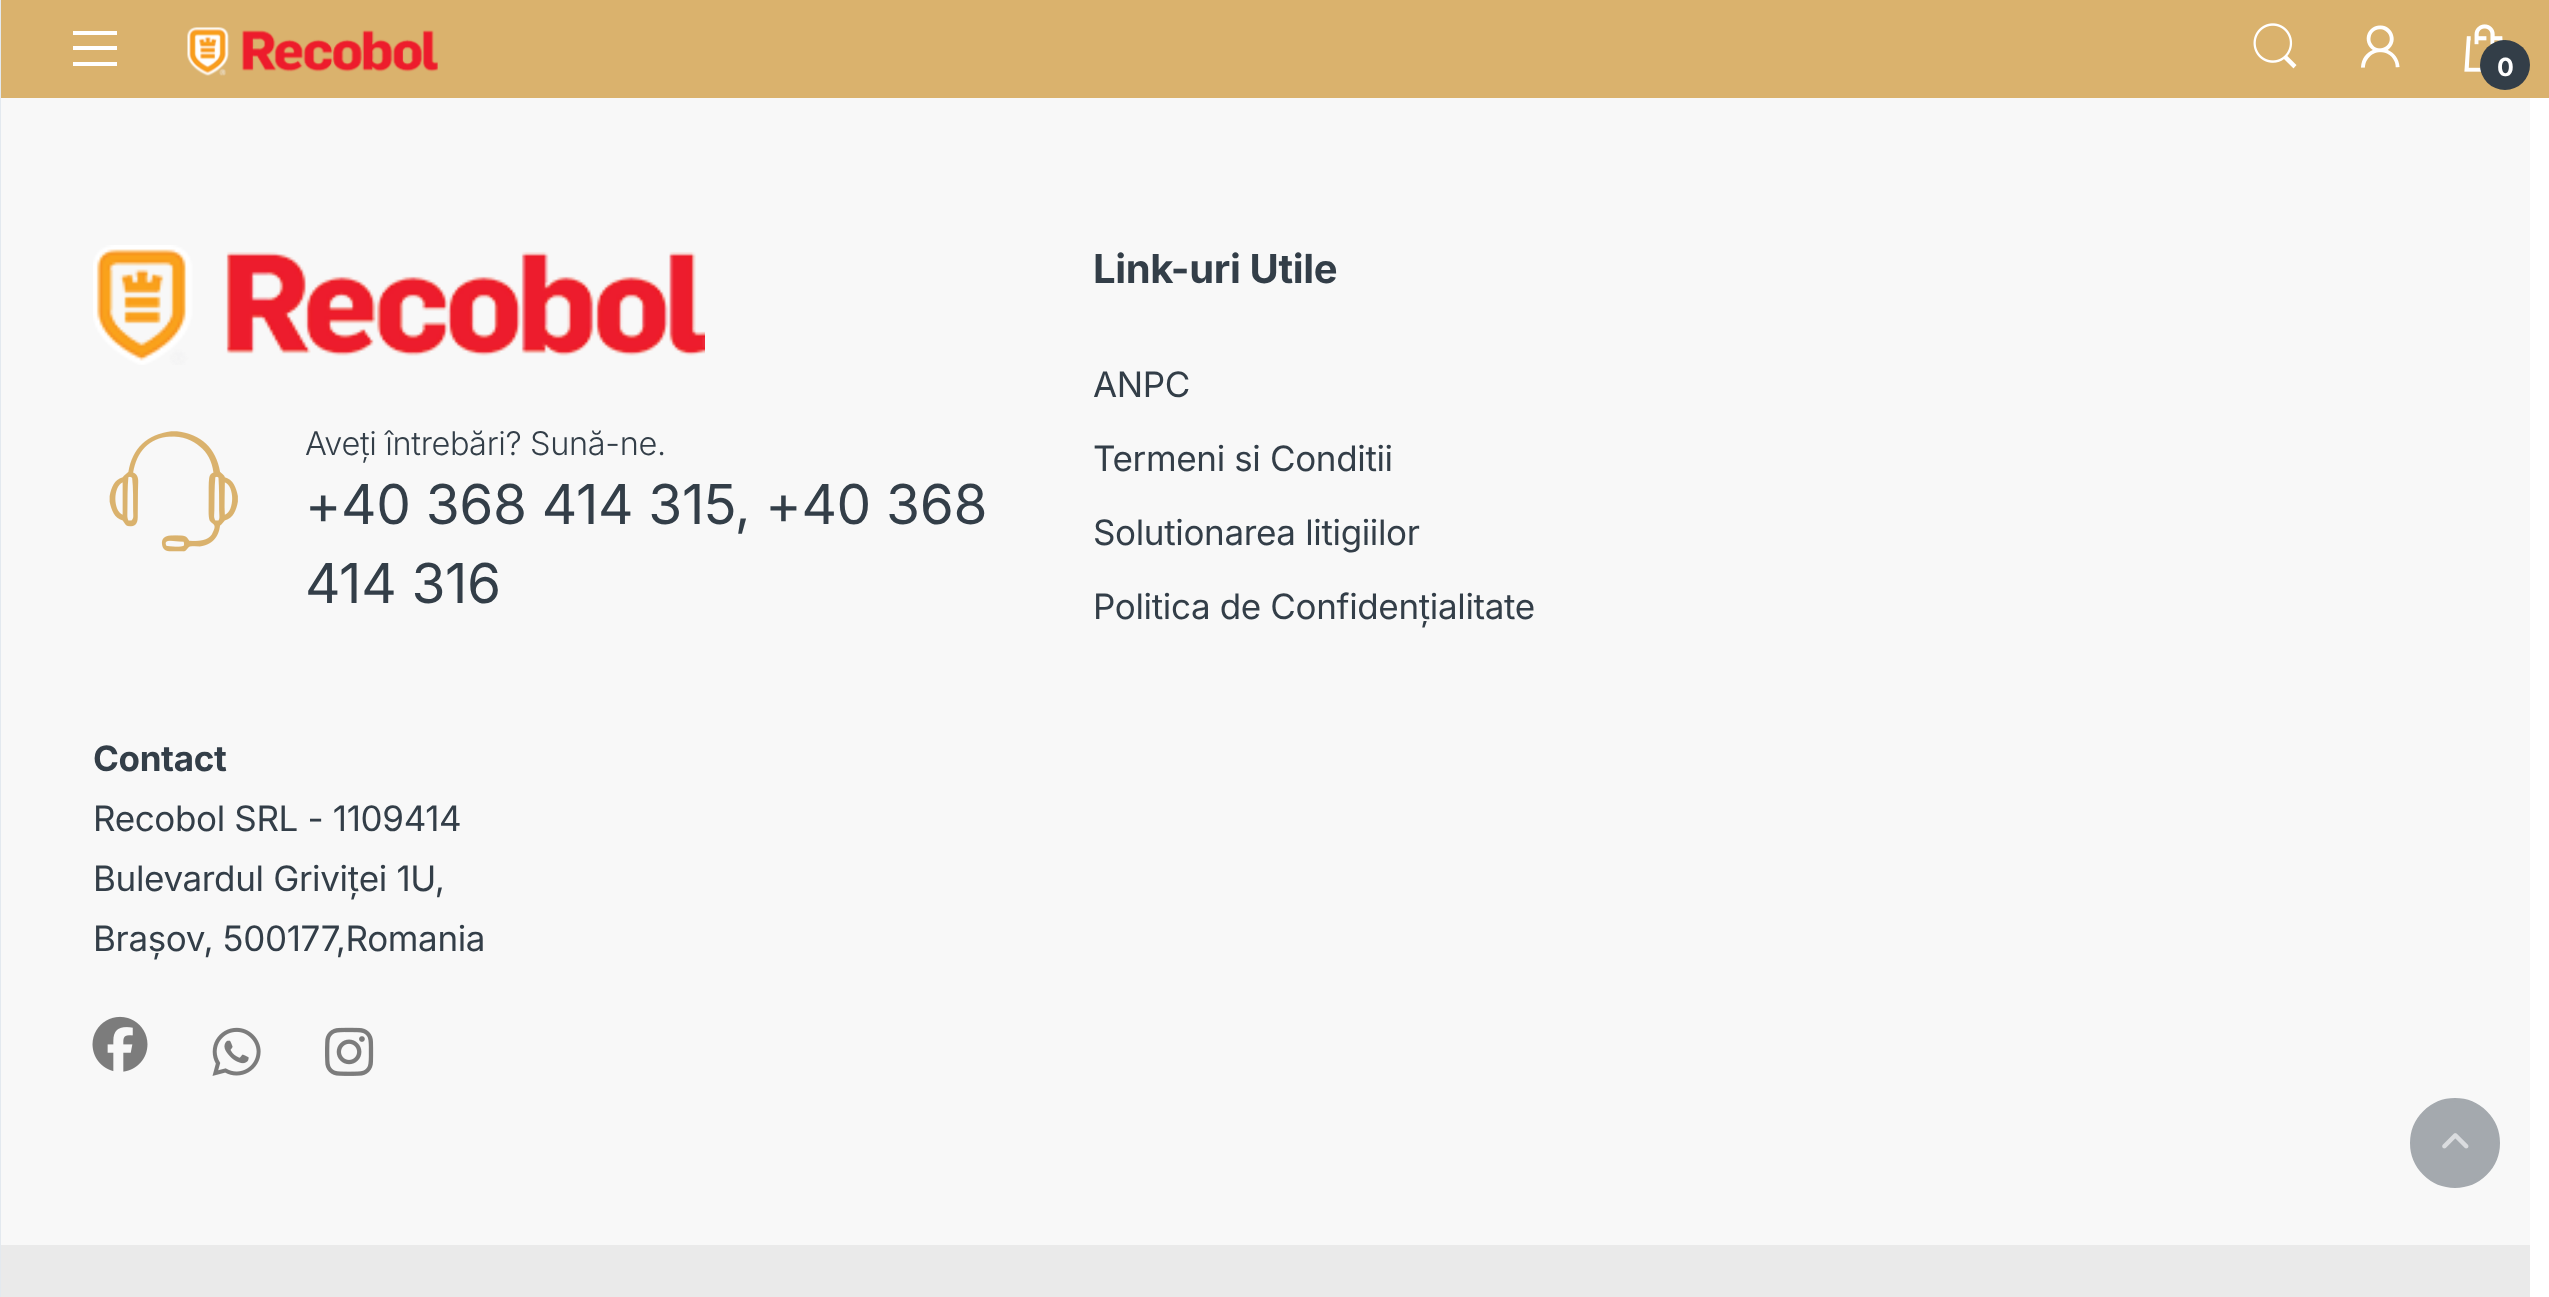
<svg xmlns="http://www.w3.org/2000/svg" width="2549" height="1297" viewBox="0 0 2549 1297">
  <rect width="100%" height="100%" fill="#ffffff"/>
  <rect x="1" y="0" width="2548" height="98" fill="#dab26d"/>
  <rect x="0" y="0" width="1" height="1297" fill="#e3e9ef"/>
  <path d="M73 66V62H117V66ZM73 46H117V50H73ZM73 31H117V35H73Z" fill="#ffffff"/>
  <image x="187" y="27" width="251" height="49" href="img1.png"/>
  <image x="2253" y="23" width="44" height="46" href="img2.png"/>
  <image x="2361" y="25" width="39" height="43" href="img3.png"/>
  <image x="2464" y="24" width="39" height="48" href="img4.png"/>
  <circle cx="2505" cy="65" r="25" fill="#333e48"/>
  <text x="2497" y="76" font-family="Inter" font-size="25" font-weight="bold" letter-spacing="-0.35" fill="#ffffff">0</text>
  <rect x="1" y="98" width="2529" height="1147" fill="#f8f8f8"/>
  <image x="93" y="245" width="612" height="120" href="img5.png"/>
  <image x="109" y="431" width="129" height="121" href="img6.png"/>
  <text x="305" y="455" font-family="Inter" font-size="32.5" font-weight="300" letter-spacing="-0.35" fill="#333e48">Aveți întrebări? Sună-ne.</text>
  <text x="305" y="524" font-family="Inter" font-size="55" letter-spacing="-0.35" fill="#333e48">+40 368 414 315, +40 368</text>
  <text x="305" y="603" font-family="Inter" font-size="55" letter-spacing="-0.35" fill="#333e48">414 316</text>
  <text x="93" y="771" font-family="Inter" font-size="35" font-weight="bold" letter-spacing="-0.35" fill="#333e48">Contact</text>
  <text x="93" y="831" font-family="Inter" font-size="35" letter-spacing="-0.35" fill="#333e48">Recobol SRL - 1109414</text>
  <text x="93" y="891" font-family="Inter" font-size="35" letter-spacing="-0.35" fill="#333e48">Bulevardul Griviței 1U,</text>
  <text x="93" y="951" font-family="Inter" font-size="35" letter-spacing="-0.35" fill="#333e48">Brașov, 500177,Romania</text>
  <image x="92" y="1016" width="56" height="56" href="img7.png"/>
  <image x="212" y="1027" width="49" height="49" href="img8.png"/>
  <image x="325" y="1027" width="49" height="49" href="img9.png"/>
  <text x="1093" y="283" font-family="Inter" font-size="40" font-weight="bold" letter-spacing="-0.35" fill="#333e48">Link-uri Utile</text>
  <text x="1093" y="397" font-family="Inter" font-size="35" letter-spacing="-0.35" fill="#333e48">ANPC</text>
  <text x="1093" y="471" font-family="Inter" font-size="35" letter-spacing="-0.35" fill="#333e48">Termeni si Conditii</text>
  <text x="1093" y="545" font-family="Inter" font-size="35" letter-spacing="-0.35" fill="#333e48">Solutionarea litigiilor</text>
  <text x="1093" y="619" font-family="Inter" font-size="35" letter-spacing="-0.35" fill="#333e48">Politica de Confidențialitate</text>
  <rect x="1" y="1245" width="2529" height="52" fill="#eaeaea"/>
  <circle cx="2455" cy="1143" r="43.5" fill="#a4a9ae" stroke="#a4a9ae" stroke-width="3"/>
  <image x="2442" y="1133" width="27" height="16" href="img10.png"/>
</svg>
